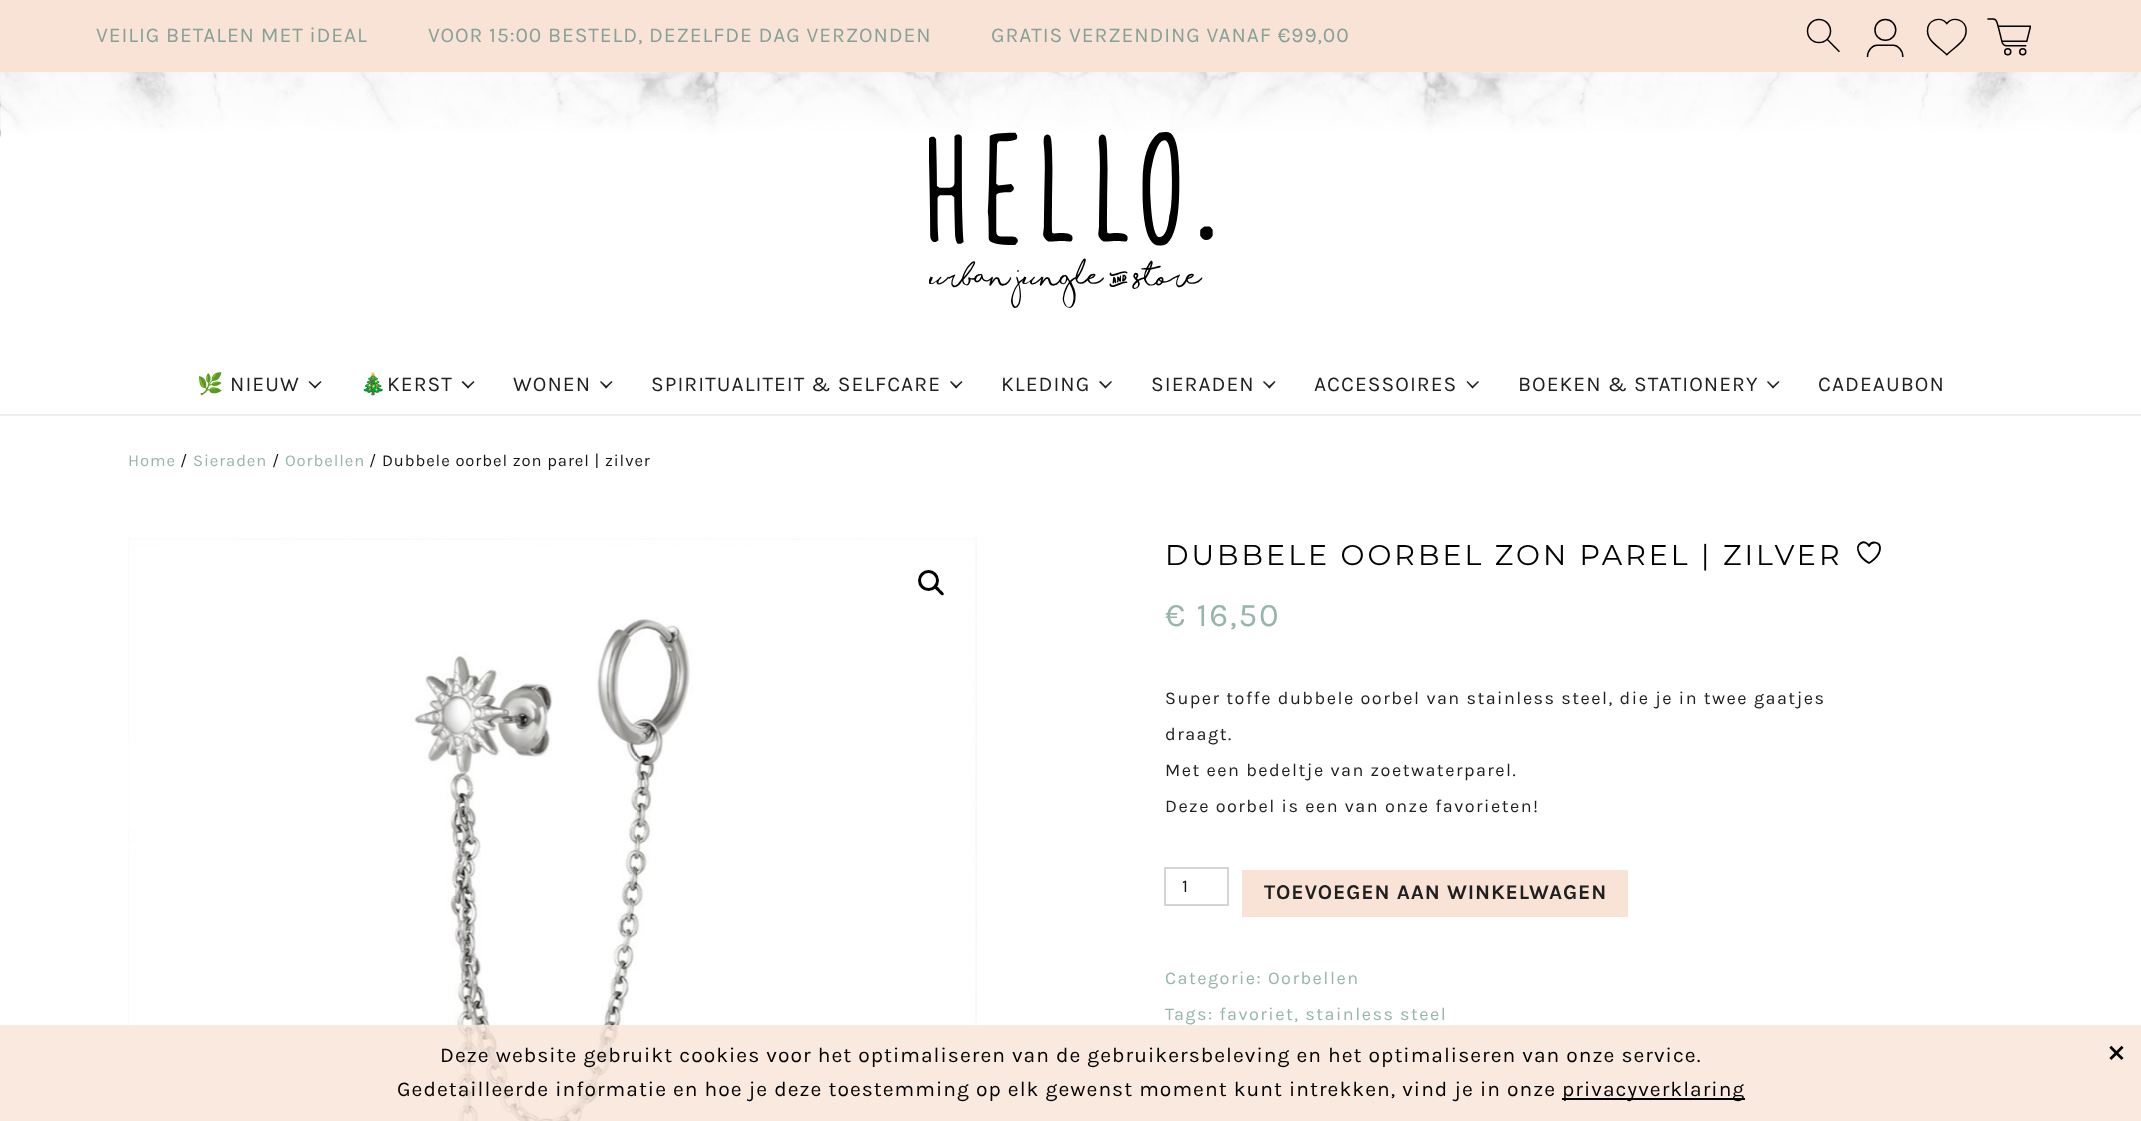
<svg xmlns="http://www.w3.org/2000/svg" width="2141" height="1121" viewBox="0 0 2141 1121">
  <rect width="100%" height="100%" fill="#ffffff"/>
  <rect x="0" y="0" width="2141" height="72" fill="#f9e3d7"/>
  <text x="96" y="42" font-family="Karla" font-size="21" letter-spacing="0.9" fill="#86a198">VEILIG BETALEN MET iDEAL</text>
  <text x="428" y="42" font-family="Karla" font-size="21" letter-spacing="0.9" fill="#86a198">VOOR 15:00 BESTELD, DEZELFDE DAG VERZONDEN</text>
  <text x="991" y="42" font-family="Karla" font-size="21" letter-spacing="0.9" fill="#86a198">GRATIS VERZENDING VANAF €99,00</text>
  <image x="1806" y="18" width="34" height="35" href="img1.png"/>
  <image x="1866" y="18" width="38" height="39" href="img2.png"/>
  <image x="1926" y="18" width="41" height="38" href="img3.png"/>
  <image x="1987" y="18" width="44" height="38" href="img4.png"/>
  <image x="0" y="72" width="2141" height="65" href="img5.png"/>
  <image x="929" y="132" width="284" height="176" href="img6.png"/>
  <rect x="0" y="414" width="2141" height="2" fill="#eeeeee"/>
  <text x="197" y="391" font-family="Noto Color Emoji" font-size="21" letter-spacing="1.05" fill="#202020">🌿</text>
  <text x="230" y="391" font-family="Karla" font-size="21" letter-spacing="1.05" fill="#202020">NIEUW</text>
  <path d="M314 387L320.5 381L321.5 382L315 388.5Z" fill="#202020"/>
  <path d="M308.5 382L309.5 381L316 387L315 388.5Z" fill="#202020"/>
  <text x="360" y="391" font-family="Noto Color Emoji" font-size="21" letter-spacing="1.05" fill="#202020">🎄</text>
  <text x="387" y="391" font-family="Karla" font-size="21" letter-spacing="1.05" fill="#202020">KERST</text>
  <path d="M467 387L473.5 381L474.5 382L468 388.5Z" fill="#202020"/>
  <path d="M461.5 382L463 381L469 387L468 388.5Z" fill="#202020"/>
  <text x="513" y="391" font-family="Karla" font-size="21" letter-spacing="1.05" fill="#202020">WONEN</text>
  <path d="M605 387L611.5 381L612.5 382L606 388.5Z" fill="#202020"/>
  <path d="M600 382L601 381L607.5 387L606 388.5Z" fill="#202020"/>
  <text x="651" y="391" font-family="Karla" font-size="21" letter-spacing="1.05" fill="#202020">SPIRITUALITEIT &amp; SELFCARE</text>
  <path d="M955 387L961.5 381L962.5 382L956 388.5Z" fill="#202020"/>
  <path d="M950 382L951 381L957.5 387L956 388.5Z" fill="#202020"/>
  <text x="1001" y="391" font-family="Karla" font-size="21" letter-spacing="1.05" fill="#202020">KLEDING</text>
  <path d="M1104.5 387L1111 381L1112 382L1105.5 388.5Z" fill="#202020"/>
  <path d="M1099 382L1100.5 381L1106.5 387L1105.5 388.5Z" fill="#202020"/>
  <text x="1151" y="391" font-family="Karla" font-size="21" letter-spacing="1.05" fill="#202020">SIERADEN</text>
  <path d="M1268 387L1274.5 381L1275.5 382L1269.5 388.5Z" fill="#202020"/>
  <path d="M1263 382L1264 381L1270.5 387L1269.5 388.5Z" fill="#202020"/>
  <text x="1314" y="391" font-family="Karla" font-size="21" letter-spacing="1.05" fill="#202020">ACCESSOIRES</text>
  <path d="M1471.5 387L1478 381L1479 382L1472.5 388.5Z" fill="#202020"/>
  <path d="M1466.5 382L1467.5 381L1473.5 387L1472.5 388.5Z" fill="#202020"/>
  <text x="1518" y="391" font-family="Karla" font-size="21" letter-spacing="1.05" fill="#202020">BOEKEN &amp; STATIONERY</text>
  <path d="M1772 387L1778.5 381L1779.5 382L1773 388.5Z" fill="#202020"/>
  <path d="M1767 382L1768 381L1774 387L1773 388.5Z" fill="#202020"/>
  <text x="1818" y="391" font-family="Karla" font-size="21" letter-spacing="1.05" fill="#202020">CADEAUBON</text>
  <text x="128" y="466" font-family="Karla" font-size="16.6" letter-spacing="0.9" fill="#97b5ab">Home</text>
  <text x="180" y="466" font-family="Karla" font-size="16.6" letter-spacing="0.9" fill="#141414">/</text>
  <text x="193" y="466" font-family="Karla" font-size="16.6" letter-spacing="0.9" fill="#97b5ab">Sieraden</text>
  <text x="272" y="466" font-family="Karla" font-size="16.6" letter-spacing="0.9" fill="#141414">/</text>
  <text x="285" y="466" font-family="Karla" font-size="16.6" letter-spacing="0.9" fill="#97b5ab">Oorbellen</text>
  <text x="369" y="466" font-family="Karla" font-size="16.6" letter-spacing="0.9" fill="#141414">/ Dubbele oorbel zon parel | zilver</text>
  <image x="128" y="538" width="849" height="583" href="img7.png"/>
  <circle cx="928.5" cy="580.5" r="9" fill="none" stroke="#000000" stroke-width="3"/>
  <path d="M935 586.5C936.5 584.5 939.5 588.5 940 589.5C941 590.5 945 593 943.5 595C941.5 596.5 939 592.5 938 591.5C937 590.5 933 588 935 586.5Z" fill="#000000"/>
  <text x="1165" y="565" font-family="Montserrat" font-size="28.5" letter-spacing="3" fill="#000000">DUBBELE OORBEL ZON PAREL | ZILVER</text>
  <path d="M1880 548C1880 542 1871.5 540.5 1869 546C1866 538.5 1853.5 543 1859.5 554C1861.5 558 1865.5 561 1869 563C1869 563 1880 557 1880 548Z" fill="none" stroke="#000000" stroke-width="1.9" stroke-linecap="round" stroke-linejoin="round"/>
  <text x="1165" y="626" font-family="Karla" font-size="33" letter-spacing="1.75" fill="#97b5ab">€ 16,50</text>
  <text x="1165" y="704" font-family="Karla" font-size="18" letter-spacing="1.5" fill="#202020">Super toffe dubbele oorbel van stainless steel, die je in twee gaatjes</text>
  <text x="1165" y="740" font-family="Karla" font-size="18" letter-spacing="1.5" fill="#202020">draagt.</text>
  <text x="1165" y="776" font-family="Karla" font-size="18" letter-spacing="1.5" fill="#202020">Met een bedeltje van zoetwaterparel.</text>
  <text x="1165" y="812" font-family="Karla" font-size="18" letter-spacing="1.5" fill="#202020">Deze oorbel is een van onze favorieten!</text>
  <rect x="1165" y="868" width="63" height="37" fill="none" stroke="#d5d5d5" stroke-width="2"/>
  <text x="1182" y="892" font-family="Karla" font-size="18" letter-spacing="0.9" fill="#141414">1</text>
  <rect x="1242" y="870" width="386" height="47" fill="#f9e3d7"/>
  <text x="1264" y="899" font-family="Karla" font-size="21" font-weight="bold" letter-spacing="0.9" fill="#202020">TOEVOEGEN AAN WINKELWAGEN</text>
  <text x="1165" y="984" font-family="Karla" font-size="18" letter-spacing="1.5" fill="#97b5ab">Categorie: Oorbellen</text>
  <text x="1165" y="1020" font-family="Karla" font-size="18" letter-spacing="1.5" fill="#97b5ab">Tags: favoriet, stainless steel</text>
  <rect x="0" y="1025" width="2141" height="96" fill="#f9e3d7" fill-opacity="0.8"/>
  <text x="440" y="1062" font-family="Karla" font-size="21" letter-spacing="1.05" fill="#000000">Deze website gebruikt cookies voor het optimaliseren van de gebruikersbeleving en het optimaliseren van onze service.</text>
  <text x="397" y="1096" font-family="Karla" font-size="21" letter-spacing="1.05" fill="#000000">Gedetailleerde informatie en hoe je deze toestemming op elk gewenst moment kunt intrekken, vind je in onze</text>
  <rect x="1562" y="1098" width="183" height="2" fill="#000000"/>
  <text x="1562" y="1096" font-family="Karla" font-size="21" letter-spacing="1.05" fill="#000000">privacyverklaring</text>
  <text x="2107" y="1062" font-family="Karla" font-size="36" letter-spacing="0.9" fill="#000000">×</text>
</svg>
